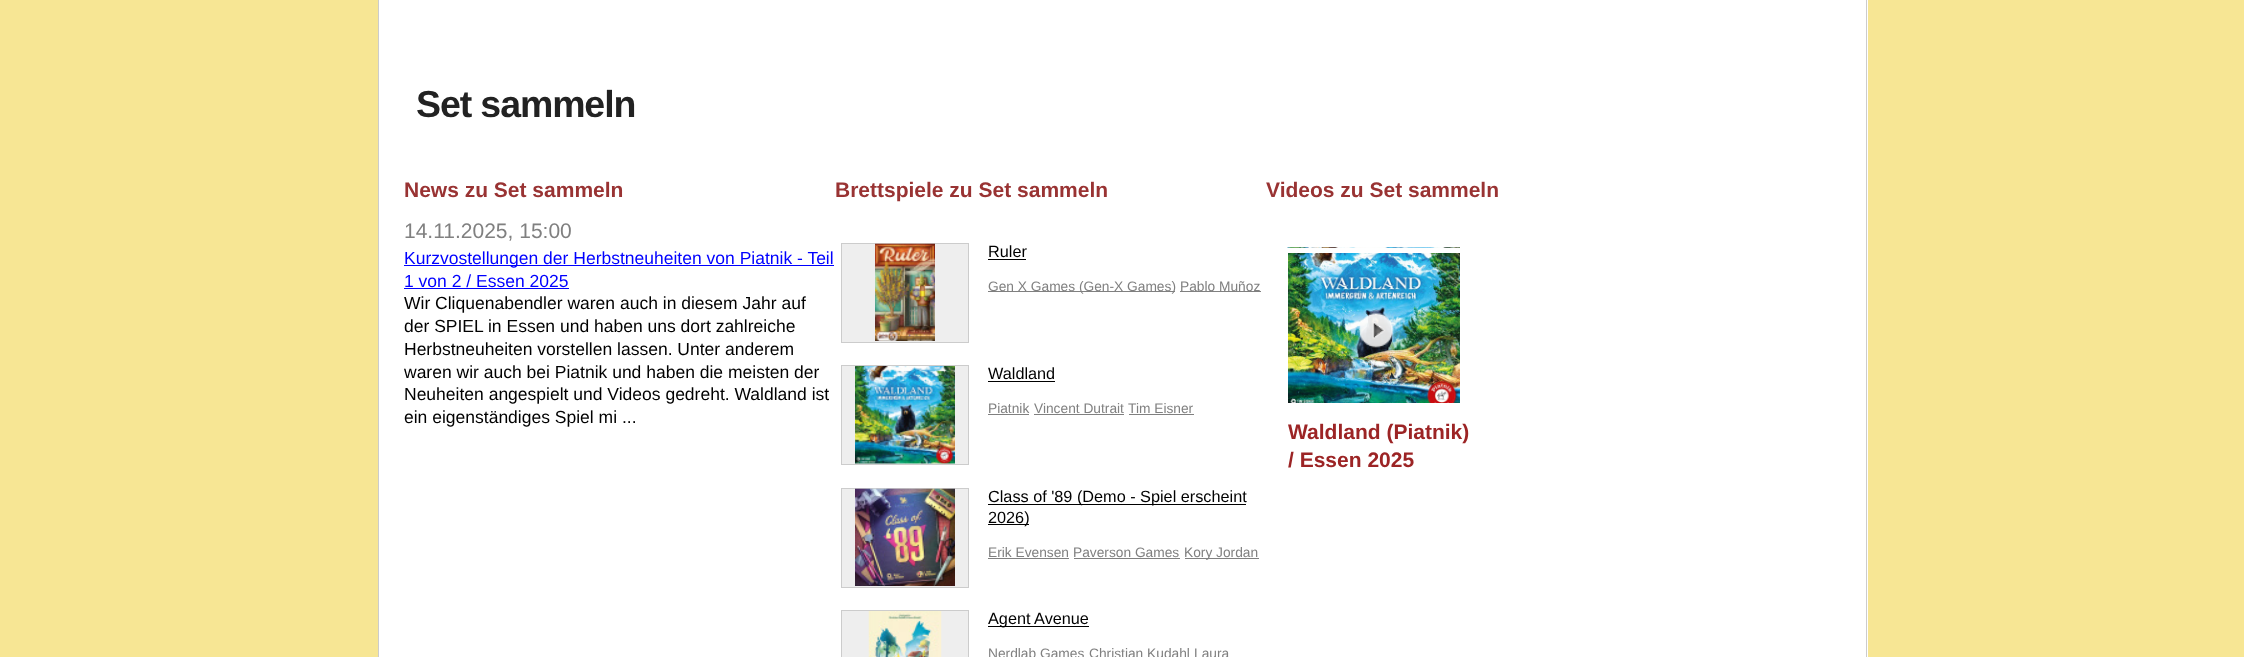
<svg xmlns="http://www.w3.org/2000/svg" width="2244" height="657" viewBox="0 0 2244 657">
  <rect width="100%" height="100%" fill="#f7e694"/>
  <rect x="379" y="0" width="1489" height="657" fill="#ffffff"/>
  <rect x="1866" y="0" width="1" height="657" fill="#cccccc"/>
  <rect x="378" y="0" width="1" height="657" fill="#cccccc"/>
  <text x="416" y="117" font-family="Liberation Sans" font-size="37.5" font-weight="bold" letter-spacing="-1.1" fill="#222222">Set sammeln</text>
  <text x="404" y="197" font-family="Liberation Sans" font-size="21" font-weight="bold" fill="#993333">News zu Set sammeln</text>
  <text x="404" y="238" font-family="Liberation Sans" font-size="21" fill="#808080">14.11.2025, 15:00</text>
  <rect x="404" y="265" width="430" height="1" fill="#0000ff"/>
  <text x="404" y="264" font-family="Liberation Sans" font-size="17.5" fill="#0000ff">Kurzvostellungen der Herbstneuheiten von Piatnik - Teil</text>
  <text x="404" y="287" font-family="Liberation Sans" font-size="17.5" fill="#0000ff">1 von 2 / Essen 2025</text>
  <rect x="404" y="288" width="165" height="1" fill="#0000ff"/>
  <text x="404" y="309" font-family="Liberation Sans" font-size="17.5" fill="#000000">Wir Cliquenabendler waren auch in diesem Jahr auf</text>
  <text x="404" y="332" font-family="Liberation Sans" font-size="17.5" fill="#000000">der SPIEL in Essen und haben uns dort zahlreiche</text>
  <text x="404" y="355" font-family="Liberation Sans" font-size="17.5" fill="#000000">Herbstneuheiten vorstellen lassen. Unter anderem</text>
  <text x="404" y="378" font-family="Liberation Sans" font-size="17.5" fill="#000000">waren wir auch bei Piatnik und haben die meisten der</text>
  <text x="404" y="400" font-family="Liberation Sans" font-size="17.5" fill="#000000">Neuheiten angespielt und Videos gedreht. Waldland ist</text>
  <text x="404" y="423" font-family="Liberation Sans" font-size="17.5" fill="#000000">ein eigenständiges Spiel mi ...</text>
  <text x="835" y="197" font-family="Liberation Sans" font-size="21" font-weight="bold" fill="#993333">Brettspiele zu Set sammeln</text>
  <rect x="841.5" y="243.5" width="127" height="99" fill="#eeeeee" stroke="#cccccc"/>
  <image x="875" y="243" width="60" height="98" href="img1.png"/>
  <text x="988" y="257" font-family="Liberation Sans" font-size="16.25" fill="#000000">Ruler</text>
  <rect x="988" y="259" width="38" height="1" fill="#000000"/>
  <rect x="988" y="291" width="187" height="1" fill="#808080"/>
  <text x="988" y="291" font-family="Liberation Sans" font-size="13.75" fill="#808080">Gen X Games (Gen-X Games)</text>
  <rect x="1180" y="291" width="81" height="1" fill="#808080"/>
  <text x="1180" y="291" font-family="Liberation Sans" font-size="13.75" fill="#808080">Pablo Muñoz</text>
  <rect x="841.5" y="365.5" width="127" height="99" fill="#eeeeee" stroke="#cccccc"/>
  <image x="855" y="366" width="100" height="98" href="img2.png"/>
  <text x="988" y="379" font-family="Liberation Sans" font-size="16.25" fill="#000000">Waldland</text>
  <rect x="988" y="381" width="67" height="1" fill="#000000"/>
  <text x="988" y="413" font-family="Liberation Sans" font-size="13.75" fill="#808080">Piatnik</text>
  <rect x="988" y="414" width="41" height="1" fill="#808080"/>
  <text x="1034" y="413" font-family="Liberation Sans" font-size="13.75" fill="#808080">Vincent Dutrait</text>
  <rect x="1034" y="414" width="90" height="1" fill="#808080"/>
  <text x="1128" y="413" font-family="Liberation Sans" font-size="13.75" fill="#808080">Tim Eisner</text>
  <rect x="1129" y="414" width="65" height="1" fill="#808080"/>
  <rect x="841.5" y="488.5" width="127" height="99" fill="#eeeeee" stroke="#cccccc"/>
  <image x="855" y="488" width="100" height="98" href="img3.png"/>
  <rect x="988" y="504" width="258" height="1" fill="#000000"/>
  <text x="988" y="502" font-family="Liberation Sans" font-size="16.25" fill="#000000">Class of '89 (Demo - Spiel erscheint</text>
  <rect x="988" y="524" width="41" height="1" fill="#000000"/>
  <text x="988" y="523" font-family="Liberation Sans" font-size="16.25" fill="#000000">2026)</text>
  <text x="988" y="557" font-family="Liberation Sans" font-size="13.75" fill="#808080">Erik Evensen</text>
  <rect x="988" y="558" width="81" height="1" fill="#808080"/>
  <text x="1073" y="557" font-family="Liberation Sans" font-size="13.75" fill="#808080">Paverson Games</text>
  <rect x="1074" y="558" width="106" height="1" fill="#808080"/>
  <rect x="1185" y="558" width="74" height="1" fill="#808080"/>
  <text x="1184" y="557" font-family="Liberation Sans" font-size="13.75" fill="#808080">Kory Jordan</text>
  <rect x="841.5" y="610.5" width="127" height="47" fill="#eeeeee" stroke="#cccccc"/>
  <image x="868" y="611" width="74" height="46" href="img4.png"/>
  <rect x="988" y="626" width="101" height="1" fill="#000000"/>
  <text x="988" y="624" font-family="Liberation Sans" font-size="16.25" fill="#000000">Agent Avenue</text>
  <text x="988" y="658" font-family="Liberation Sans" font-size="13.75" fill="#808080">Nerdlab Games</text>
  <text x="1089" y="658" font-family="Liberation Sans" font-size="13.75" fill="#808080">Christian Kudahl</text>
  <text x="1194" y="658" font-family="Liberation Sans" font-size="13.75" fill="#808080">Laura</text>
  <text x="1266" y="197" font-family="Liberation Sans" font-size="21" font-weight="bold" fill="#993333">Videos zu Set sammeln</text>
  <image x="1287" y="247" width="173" height="156" href="img5.png"/>
  <rect x="1285.5" y="250.5" width="177" height="155" fill="none" stroke="#ffffff" stroke-width="5"/>
  <image x="1358" y="313" width="36" height="39" href="img6.png"/>
  <text x="1288" y="439" font-family="Liberation Sans" font-size="21" font-weight="bold" fill="#9c2425">Waldland (Piatnik)</text>
  <text x="1288" y="467" font-family="Liberation Sans" font-size="21" font-weight="bold" fill="#9c2425">/ Essen 2025</text>
</svg>
